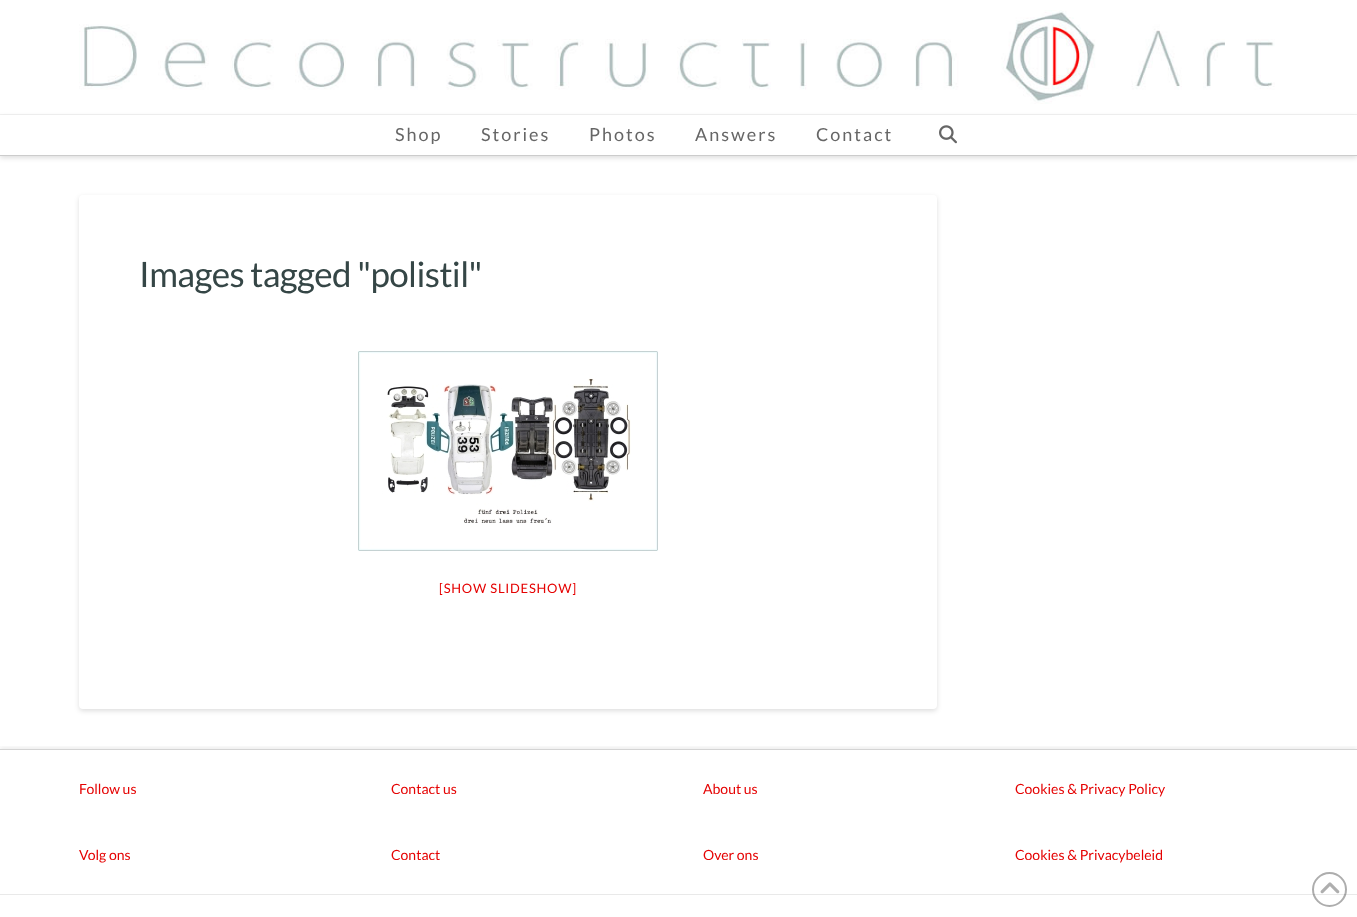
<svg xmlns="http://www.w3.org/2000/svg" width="1357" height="917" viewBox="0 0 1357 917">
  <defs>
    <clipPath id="clip1"><path d="M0 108H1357V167H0ZM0 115H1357V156H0Z" clip-rule="evenodd"/></clipPath>
    <filter id="blur1" x="-50%" y="-200%" width="200%" height="500%"><feGaussianBlur stdDeviation="2.5"/></filter>
    <clipPath id="clip2"><rect x="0" y="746" width="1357" height="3"/></clipPath>
    <filter id="blur2" x="-50%" y="-200%" width="200%" height="500%"><feGaussianBlur stdDeviation="2"/></filter>
  </defs>
  <rect width="100%" height="100%" fill="#ffffff"/>
  <rect x="0" y="114" width="1357" height="1" fill="#f2f2f2"/>
  <image x="79" y="10" width="1196" height="94" href="img1.png"/>
  <g clip-path="url(#clip1)">
    <rect x="0" y="117" width="1357" height="41" fill="#000000" fill-opacity="0.13" filter="url(#blur1)"/>
  </g>
  <rect x="0" y="155" width="1357" height="1" fill="#cccccc"/>
  <text x="395" y="141" font-family="Lato" font-size="18" letter-spacing="2" fill="#666666">Shop</text>
  <text x="481" y="141" font-family="Lato" font-size="18" letter-spacing="2" fill="#666666">Stories</text>
  <text x="589" y="141" font-family="Lato" font-size="18" letter-spacing="2" fill="#666666">Photos</text>
  <text x="695" y="141" font-family="Lato" font-size="18" letter-spacing="2" fill="#666666">Answers</text>
  <text x="816" y="141" font-family="Lato" font-size="18" letter-spacing="2" fill="#666666">Contact</text>
  <image x="939" y="125" width="18" height="19" href="img2.png"/>
  <rect x="79" y="197" width="858" height="514" rx="4" fill="#000000" fill-opacity="0.13" filter="url(#blur1)"/>
  <rect x="79" y="195" width="858" height="514" rx="4" fill="#ffffff"/>
  <text x="139" y="287" font-family="Lato" font-size="35" letter-spacing="-0.6" fill="#354646">Images tagged "polistil"</text>
  <image x="358" y="351" width="300" height="200" href="img3.png"/>
  <text x="439" y="593" font-family="Lato" font-size="13" letter-spacing="0.75" fill="#e50202">[SHOW SLIDESHOW]</text>
  <g clip-path="url(#clip2)">
    <rect x="0" y="747" width="1357" height="145" fill="#000000" fill-opacity="0.07" filter="url(#blur2)"/>
  </g>
  <rect x="0" y="749" width="1357" height="1" fill="#d4d4d4"/>
  <text x="79" y="794" font-family="Lato" font-size="14" fill="#e50202">Follow us</text>
  <text x="79" y="860" font-family="Lato" font-size="14" fill="#e50202">Volg ons</text>
  <text x="391" y="794" font-family="Lato" font-size="14" fill="#e50202">Contact us</text>
  <text x="391" y="860" font-family="Lato" font-size="14" fill="#e50202">Contact</text>
  <text x="703" y="794" font-family="Lato" font-size="14" fill="#e50202">About us</text>
  <text x="703" y="860" font-family="Lato" font-size="14" fill="#e50202">Over ons</text>
  <text x="1015" y="794" font-family="Lato" font-size="14" fill="#e50202">Cookies &amp; Privacy Policy</text>
  <text x="1015" y="860" font-family="Lato" font-size="14" fill="#e50202">Cookies &amp; Privacybeleid</text>
  <rect x="0" y="894" width="1357" height="1" fill="#e9e9e9"/>
  <circle cx="1329.5" cy="889.5" r="16.5" fill="none" stroke="#272727" stroke-opacity="0.38" stroke-width="2"/>
  <image x="1320" y="882" width="20" height="12" href="img4.png"/>
</svg>
